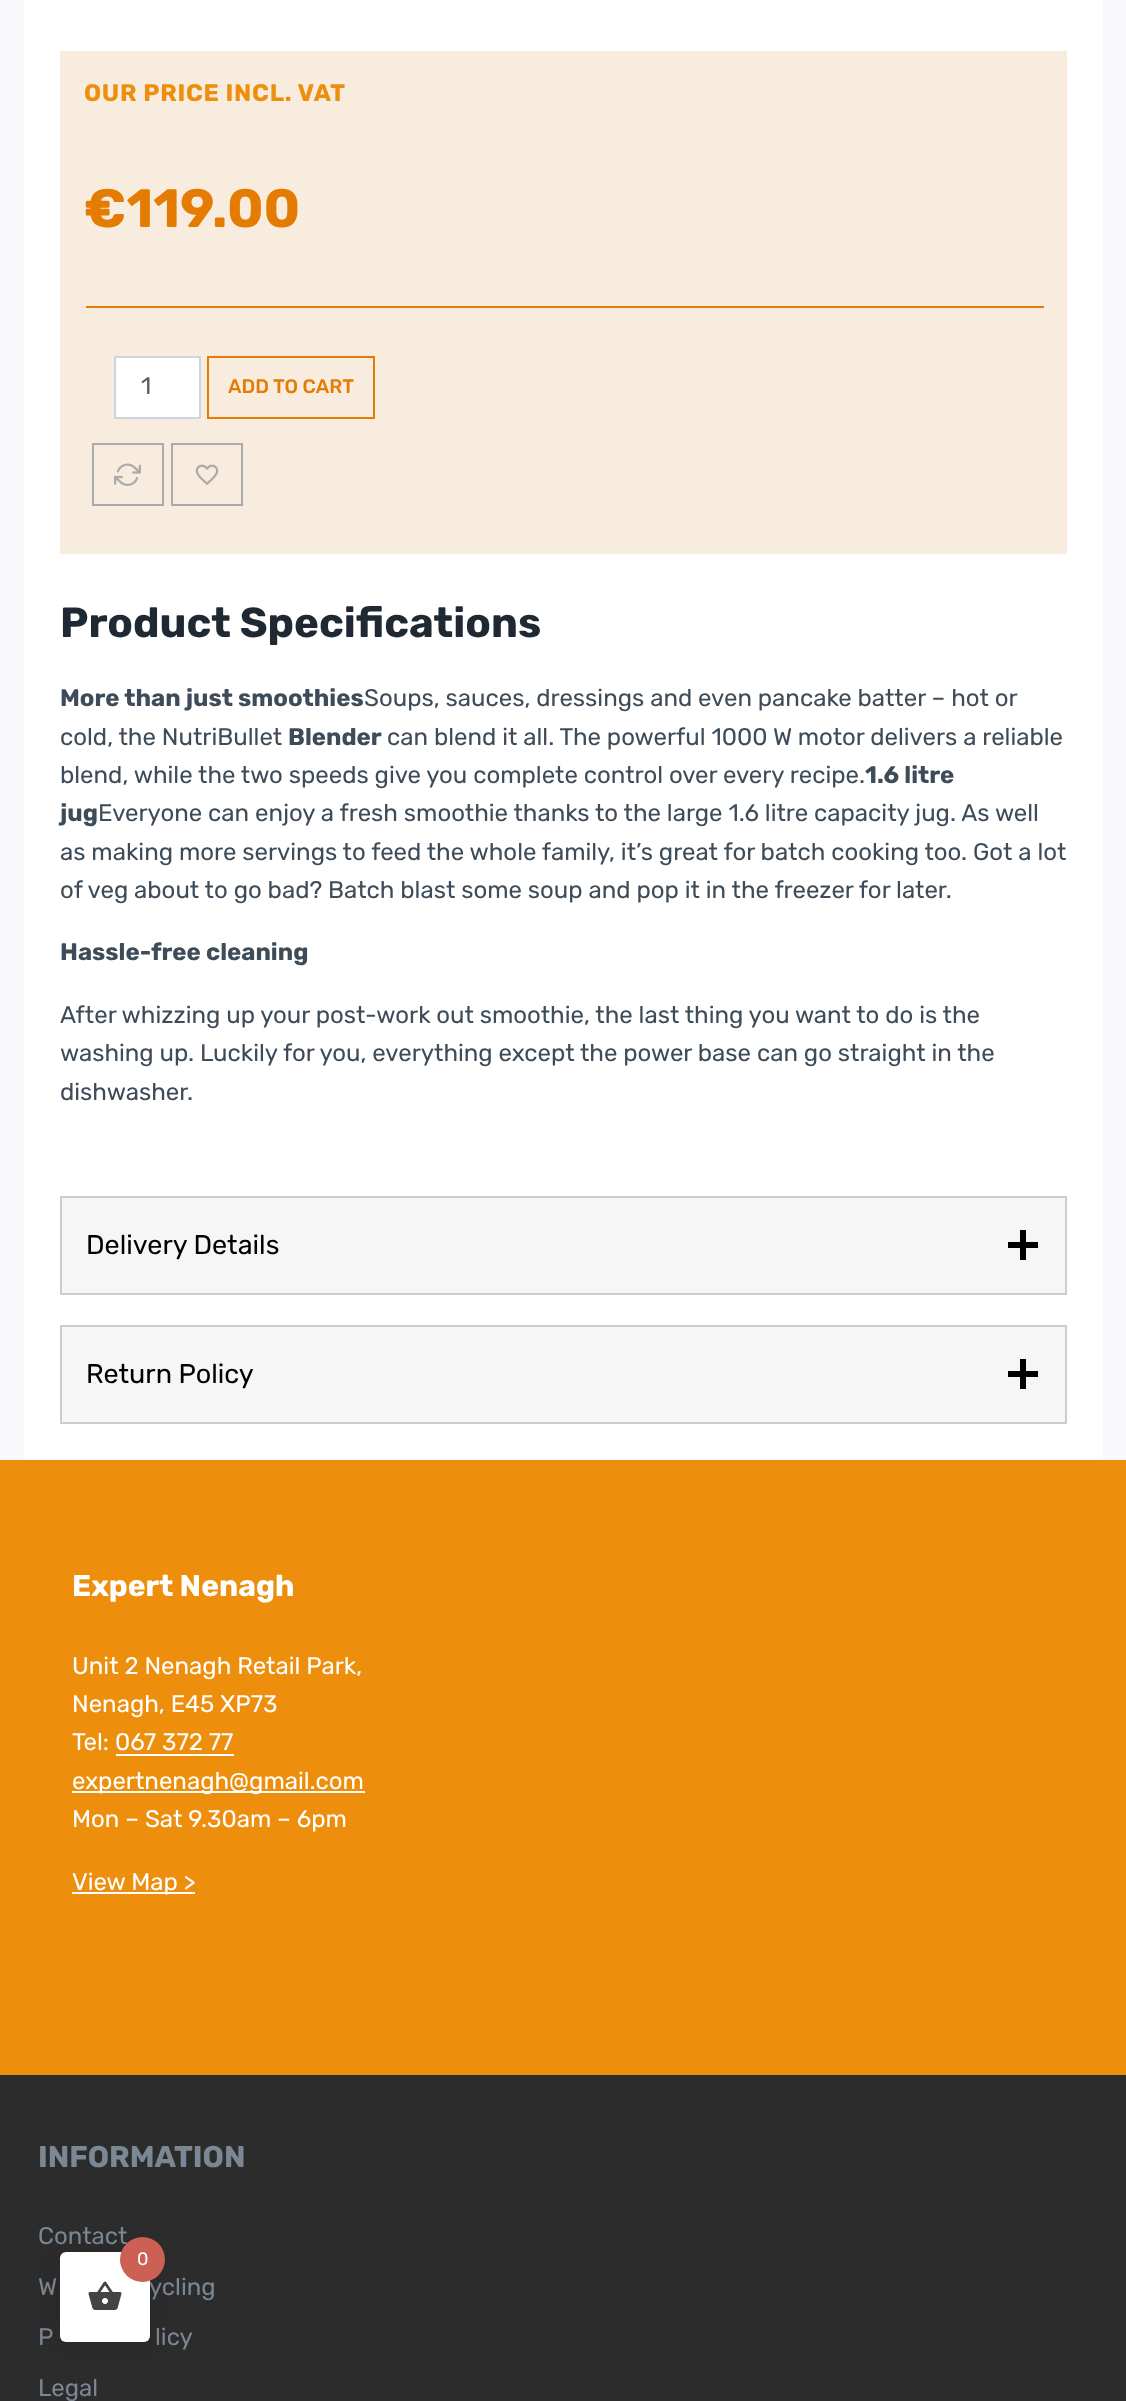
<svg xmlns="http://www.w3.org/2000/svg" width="1126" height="2401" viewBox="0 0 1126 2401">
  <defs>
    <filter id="blur1" x="-50%" y="-200%" width="200%" height="500%"><feGaussianBlur stdDeviation="15"/></filter>
  </defs>
  <rect width="100%" height="100%" fill="#f9f9fb"/>
  <rect x="24" y="0" width="1079" height="1460" fill="#ffffff"/>
  <rect x="60" y="51" width="1007" height="503" fill="#f8ecdf"/>
  <text x="84" y="101" font-family="Rubik" font-size="24" font-weight="300" letter-spacing="0.75" fill="#ed8f0c">OUR PRICE INCL. VAT</text>
  <text x="84" y="227" font-family="Rubik" font-size="54" font-weight="300" fill="#e47b02">€119.00</text>
  <rect x="86" y="306" width="958" height="2" fill="#e47b02"/>
  <rect x="115" y="357" width="85" height="61" rx="0.5" fill="#ffffff" stroke="#cbd5e0" stroke-width="2"/>
  <text x="141" y="394" font-family="'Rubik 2'" font-size="24" font-weight="300" fill="#52606d">1</text>
  <rect x="208" y="357" width="166" height="61" fill="none" stroke="#e47b02" stroke-width="2"/>
  <text x="228" y="393" font-family="'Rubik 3'" font-size="19.5" font-weight="300" fill="#e47b02">ADD TO CART</text>
  <rect x="93" y="444" width="70" height="61" fill="none" stroke="#ababab" stroke-width="2"/>
  <image x="114" y="463" width="27" height="23" href="img1.png"/>
  <rect x="172" y="444" width="70" height="61" fill="none" stroke="#ababab" stroke-width="2"/>
  <image x="195" y="464" width="24" height="21" href="img2.png"/>
  <text x="60" y="637" font-family="Rubik" font-size="42" font-weight="300" fill="#1f2933">Product Specifications</text>
  <text x="60" y="706" font-family="Rubik" font-size="24" font-weight="300" fill="#3e4c59">More than just smoothies</text>
  <text x="364" y="706" font-family="'Rubik 2'" font-size="24" font-weight="300" fill="#3e4c59">Soups, sauces, dressings and even pancake batter – hot or</text>
  <text x="60" y="745" font-family="'Rubik 2'" font-size="24" font-weight="300" fill="#3e4c59">cold, the NutriBullet</text>
  <text x="288" y="745" font-family="Rubik" font-size="24" font-weight="300" fill="#3e4c59">Blender</text>
  <text x="387" y="745" font-family="'Rubik 2'" font-size="24" font-weight="300" fill="#3e4c59">can blend it all. The powerful 1000 W motor delivers a reliable</text>
  <text x="60" y="783" font-family="'Rubik 2'" font-size="24" font-weight="300" fill="#3e4c59">blend, while the two speeds give you complete control over every recipe.</text>
  <text x="865" y="783" font-family="Rubik" font-size="24" font-weight="300" fill="#3e4c59">1.6 litre</text>
  <text x="60" y="821" font-family="Rubik" font-size="24" font-weight="300" fill="#3e4c59">jug</text>
  <text x="98" y="821" font-family="'Rubik 2'" font-size="24" font-weight="300" fill="#3e4c59">Everyone can enjoy a fresh smoothie thanks to the large 1.6 litre capacity jug. As well</text>
  <text x="60" y="860" font-family="'Rubik 2'" font-size="24" font-weight="300" fill="#3e4c59">as making more servings to feed the whole family, it’s great for batch cooking too. Got a lot</text>
  <text x="60" y="898" font-family="'Rubik 2'" font-size="24" font-weight="300" fill="#3e4c59">of veg about to go bad? Batch blast some soup and pop it in the freezer for later.</text>
  <text x="60" y="960" font-family="Rubik" font-size="24" font-weight="300" fill="#3e4c59">Hassle-free cleaning</text>
  <text x="60" y="1023" font-family="'Rubik 2'" font-size="24" font-weight="300" fill="#3e4c59">After whizzing up your post-work out smoothie, the last thing you want to do is the</text>
  <text x="60" y="1061" font-family="'Rubik 2'" font-size="24" font-weight="300" fill="#3e4c59">washing up. Luckily for you, everything except the power base can go straight in the</text>
  <text x="60" y="1100" font-family="'Rubik 2'" font-size="24" font-weight="300" fill="#3e4c59">dishwasher.</text>
  <rect x="61" y="1197" width="1005" height="97" fill="#f6f6f6" stroke="#cccccc" stroke-width="2"/>
  <text x="86" y="1254" font-family="'Rubik 2'" font-size="27" font-weight="300" fill="#000000">Delivery Details</text>
  <rect x="1020" y="1230" width="6" height="30" fill="#000000"/>
  <rect x="1008" y="1242" width="30" height="6" fill="#000000"/>
  <rect x="61" y="1326" width="1005" height="97" fill="#f6f6f6" stroke="#cccccc" stroke-width="2"/>
  <text x="86" y="1383" font-family="'Rubik 2'" font-size="27" font-weight="300" fill="#000000">Return Policy</text>
  <rect x="1020" y="1359" width="6" height="30" fill="#000000"/>
  <rect x="1008" y="1371" width="30" height="6" fill="#000000"/>
  <rect x="0" y="1460" width="1126" height="615" fill="#ed8f0c"/>
  <text x="72" y="1596" font-family="Rubik" font-size="30" font-weight="300" fill="#ffffff">Expert Nenagh</text>
  <text x="72" y="1674" font-family="'Rubik 2'" font-size="24" font-weight="300" fill="#ffffff">Unit 2 Nenagh Retail Park,</text>
  <text x="72" y="1712" font-family="'Rubik 2'" font-size="24" font-weight="300" fill="#ffffff">Nenagh, E45 XP73</text>
  <text x="72" y="1750" font-family="'Rubik 2'" font-size="24" font-weight="300" fill="#ffffff">Tel: 067 372 77</text>
  <rect x="116" y="1754" width="118" height="2" fill="#ffffff"/>
  <rect x="72" y="1791" width="293" height="2" fill="#ffffff"/>
  <text x="72" y="1789" font-family="'Rubik 2'" font-size="24" font-weight="300" fill="#ffffff">expertnenagh@gmail.com</text>
  <text x="72" y="1827" font-family="'Rubik 2'" font-size="24" font-weight="300" fill="#ffffff">Mon – Sat 9.30am – 6pm</text>
  <rect x="72" y="1892" width="123" height="2" fill="#ffffff"/>
  <text x="72" y="1890" font-family="'Rubik 2'" font-size="24" font-weight="300" fill="#ffffff">View Map &gt;</text>
  <rect x="0" y="2075" width="1126" height="326" fill="#2c2c2c"/>
  <text x="38" y="2167" font-family="Rubik" font-size="30" font-weight="300" fill="#7b8794">INFORMATION</text>
  <text x="38" y="2244" font-family="'Rubik 2'" font-size="24" font-weight="300" fill="#7b8794">Contact</text>
  <text x="38" y="2295" font-family="'Rubik 2'" font-size="24" font-weight="300" fill="#7b8794">W</text>
  <text x="149" y="2295" font-family="'Rubik 2'" font-size="24" font-weight="300" fill="#7b8794">ycling</text>
  <text x="38" y="2345" font-family="'Rubik 2'" font-size="24" font-weight="300" fill="#7b8794">P</text>
  <text x="155" y="2345" font-family="'Rubik 2'" font-size="24" font-weight="300" fill="#7b8794">licy</text>
  <text x="38" y="2396" font-family="'Rubik 2'" font-size="24" font-weight="300" fill="#7b8794">Legal</text>
  <rect x="60" y="2252" width="90" height="90" rx="6" fill="#000000" fill-opacity="0.15" filter="url(#blur1)"/>
  <rect x="60" y="2252" width="90" height="90" rx="6" fill="#ffffff"/>
  <image x="88" y="2281" width="34" height="29" href="img3.png"/>
  <circle cx="142.5" cy="2259.5" r="22.5" fill="#cc6055"/>
  <text x="137" y="2265" font-family="'Rubik 2'" font-size="18" font-weight="300" fill="#ffffff">0</text>
</svg>
